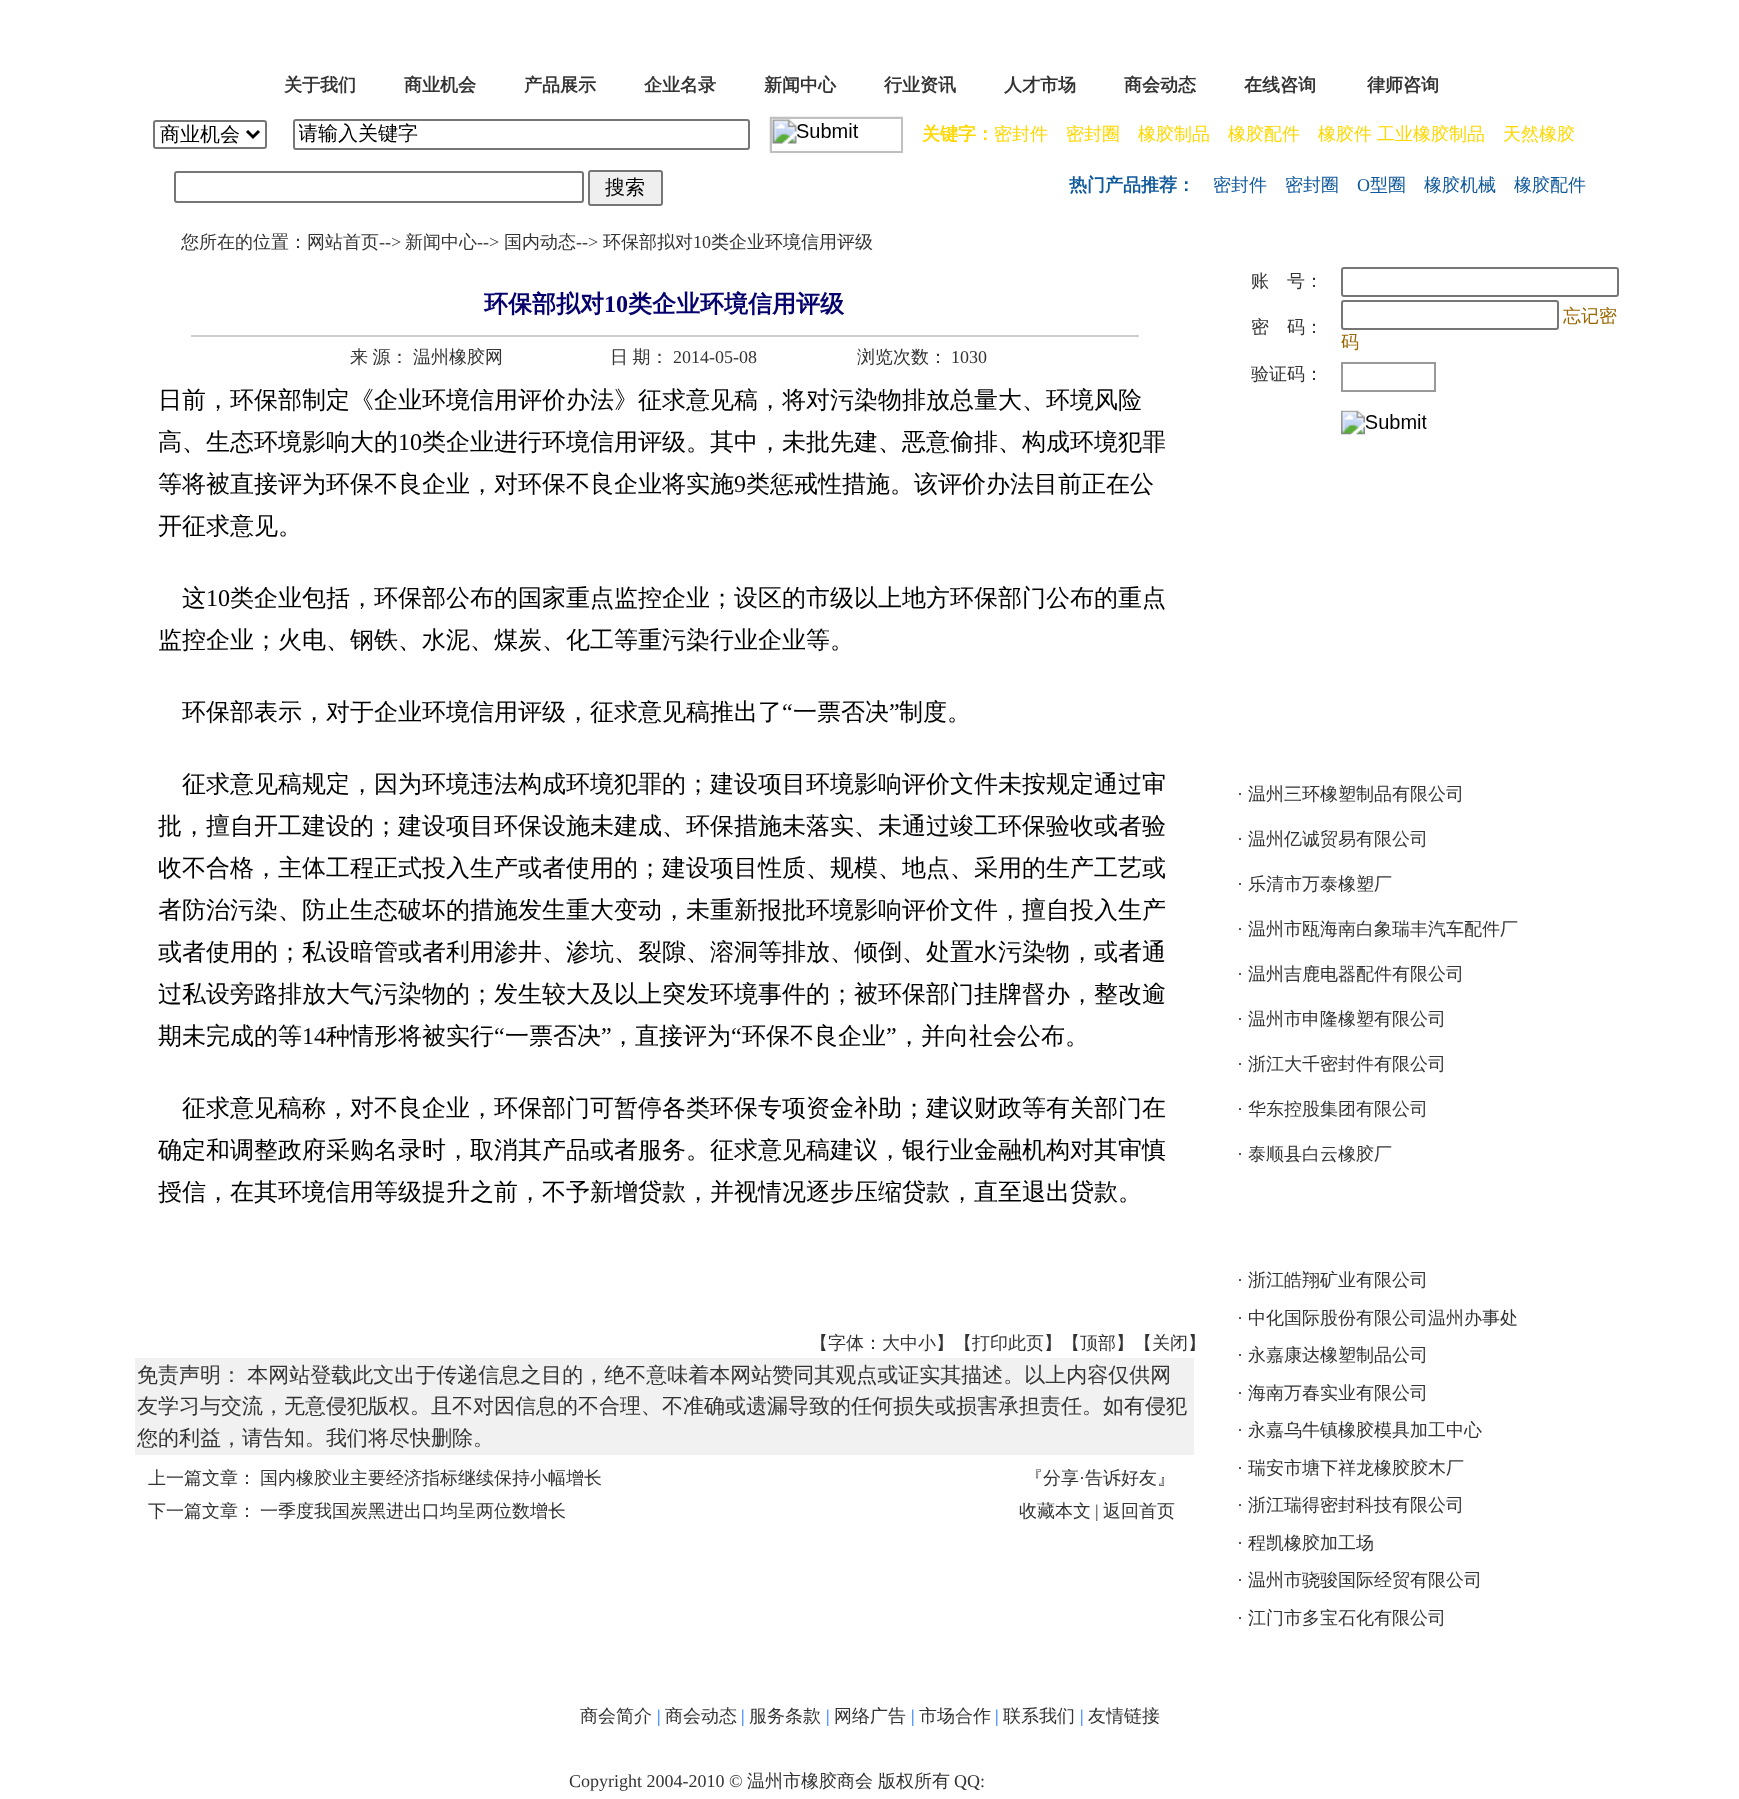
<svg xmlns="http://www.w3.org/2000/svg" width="1739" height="1799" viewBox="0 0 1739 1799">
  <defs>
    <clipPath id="clip1"><rect x="299" y="122" width="445" height="25"/></clipPath>
  </defs>
  <rect width="100%" height="100%" fill="#ffffff"/>
  <text x="284" y="91" font-family="WenQuanYi Zen Hei" font-size="18" font-weight="bold" fill="#333333">关于我们</text>
  <text x="404" y="91" font-family="WenQuanYi Zen Hei" font-size="18" font-weight="bold" fill="#333333">商业机会</text>
  <text x="524" y="91" font-family="WenQuanYi Zen Hei" font-size="18" font-weight="bold" fill="#333333">产品展示</text>
  <text x="644" y="91" font-family="WenQuanYi Zen Hei" font-size="18" font-weight="bold" fill="#333333">企业名录</text>
  <text x="764" y="91" font-family="WenQuanYi Zen Hei" font-size="18" font-weight="bold" fill="#333333">新闻中心</text>
  <text x="884" y="91" font-family="WenQuanYi Zen Hei" font-size="18" font-weight="bold" fill="#333333">行业资讯</text>
  <text x="1004" y="91" font-family="WenQuanYi Zen Hei" font-size="18" font-weight="bold" fill="#333333">人才市场</text>
  <text x="1124" y="91" font-family="WenQuanYi Zen Hei" font-size="18" font-weight="bold" fill="#333333">商会动态</text>
  <text x="1244" y="91" font-family="WenQuanYi Zen Hei" font-size="18" font-weight="bold" fill="#333333">在线咨询</text>
  <text x="1367" y="91" font-family="WenQuanYi Zen Hei" font-size="18" font-weight="bold" fill="#333333">律师咨询</text>
  <rect x="154" y="121" width="112" height="27" rx="2" fill="none" stroke="#767676" stroke-width="2"/>
  <path d="M247 131L253 137L259 131" fill="none" stroke="#000000" stroke-width="3"/>
  <text x="160" y="141" font-family="WenQuanYi Zen Hei" font-size="20" font-weight="500" fill="#000000">商业机会</text>
  <rect x="294" y="120" width="455" height="29" rx="2" fill="none" stroke="#767676" stroke-width="2"/>
  <g clip-path="url(#clip1)">
    <text x="298" y="140" font-family="WenQuanYi Zen Hei" font-size="20" font-weight="500" fill="#000000">请输入关键字</text>
  </g>
  <image x="769" y="116" width="134" height="37" href="img1.png"/>
  <rect x="771" y="118" width="131" height="34" fill="none" stroke="#c0c0c0" stroke-width="2"/>
  <text x="922" y="140" font-family="WenQuanYi Zen Hei" font-size="18" font-weight="bold" fill="#ffd802">关键字：</text>
  <text x="994" y="140" font-family="WenQuanYi Zen Hei" font-size="18" font-weight="500" fill="#ffd802">密封件　密封圈　橡胶制品　橡胶配件　橡胶件</text>
  <text x="1377" y="140" font-family="WenQuanYi Zen Hei" font-size="18" font-weight="500" fill="#ffd802">工业橡胶制品　天然橡胶</text>
  <rect x="175" y="172" width="408" height="30" rx="2" fill="none" stroke="#767676" stroke-width="2"/>
  <rect x="589" y="171" width="73" height="34" rx="2" fill="#efefef" stroke="#767676" stroke-width="2"/>
  <text x="605" y="194" font-family="WenQuanYi Zen Hei" font-size="20" font-weight="500" fill="#000000">搜索</text>
  <text x="1069" y="191" font-family="WenQuanYi Zen Hei" font-size="18" font-weight="bold" fill="#0f589c">热门产品推荐：</text>
  <text x="1213" y="191" font-family="WenQuanYi Zen Hei" font-size="18" font-weight="500" fill="#0f589c">密封件　密封圈</text>
  <text x="1357" y="191" font-family="Liberation Serif" font-size="18" fill="#0f589c">O</text>
  <text x="1370" y="191" font-family="WenQuanYi Zen Hei" font-size="18" font-weight="500" fill="#0f589c">型圈　橡胶机械　橡胶配件</text>
  <text x="181" y="248" font-family="WenQuanYi Zen Hei" font-size="18" font-weight="500" fill="#333333">您所在的位置：网站首页</text>
  <text x="379" y="248" font-family="Liberation Serif" font-size="18" fill="#333333">--&gt;</text>
  <text x="405" y="248" font-family="WenQuanYi Zen Hei" font-size="18" font-weight="500" fill="#333333">新闻中心</text>
  <text x="477" y="248" font-family="Liberation Serif" font-size="18" fill="#333333">--&gt;</text>
  <text x="504" y="248" font-family="WenQuanYi Zen Hei" font-size="18" font-weight="500" fill="#333333">国内动态</text>
  <text x="576" y="248" font-family="Liberation Serif" font-size="18" fill="#333333">--&gt;</text>
  <text x="603" y="248" font-family="WenQuanYi Zen Hei" font-size="18" font-weight="500" fill="#333333">环保部拟对</text>
  <text x="693" y="248" font-family="Liberation Serif" font-size="18" fill="#333333">10</text>
  <text x="711" y="248" font-family="WenQuanYi Zen Hei" font-size="18" font-weight="500" fill="#333333">类企业环境信用评级</text>
  <text x="484" y="312" font-family="WenQuanYi Zen Hei" font-size="24" font-weight="bold" fill="#05006c">环保部拟对</text>
  <text x="604" y="312" font-family="Liberation Serif" font-size="24" font-weight="bold" fill="#05006c">10</text>
  <text x="628" y="312" font-family="WenQuanYi Zen Hei" font-size="24" font-weight="bold" fill="#05006c">类企业环境信用评级</text>
  <rect x="191" y="335" width="948" height="2" fill="#cccccc"/>
  <text x="350" y="363" word-spacing="-1" font-family="WenQuanYi Zen Hei" font-size="18" font-weight="500" fill="#333333">来 源：</text>
  <text x="413" y="363" font-family="WenQuanYi Zen Hei" font-size="18" font-weight="500" fill="#333333">温州橡胶网</text>
  <text x="610" y="363" word-spacing="-1" font-family="WenQuanYi Zen Hei" font-size="18" font-weight="500" fill="#333333">日 期：</text>
  <text x="673" y="363" font-family="Liberation Serif" font-size="18" fill="#333333">2014-05-08</text>
  <text x="857" y="363" font-family="WenQuanYi Zen Hei" font-size="18" font-weight="500" fill="#333333">浏览次数：</text>
  <text x="951" y="363" font-family="Liberation Serif" font-size="18" fill="#333333">1030</text>
  <text x="158" y="408" font-family="WenQuanYi Zen Hei" font-size="24" font-weight="500" fill="#000000">日前，环保部制定《企业环境信用评价办法》征求意见稿，将对污染物排放总量大、环境风险</text>
  <text x="158" y="450" font-family="WenQuanYi Zen Hei" font-size="24" font-weight="500" fill="#000000">高、生态环境影响大的</text>
  <text x="398" y="450" font-family="Liberation Serif" font-size="24" fill="#000000">10</text>
  <text x="422" y="450" font-family="WenQuanYi Zen Hei" font-size="24" font-weight="500" fill="#000000">类企业进行环境信用评级。其中，未批先建、恶意偷排、构成环境犯罪</text>
  <text x="158" y="492" font-family="WenQuanYi Zen Hei" font-size="24" font-weight="500" fill="#000000">等将被直接评为环保不良企业，对环保不良企业将实施</text>
  <text x="734" y="492" font-family="Liberation Serif" font-size="24" fill="#000000">9</text>
  <text x="746" y="492" font-family="WenQuanYi Zen Hei" font-size="24" font-weight="500" fill="#000000">类惩戒性措施。该评价办法目前正在公</text>
  <text x="158" y="534" font-family="WenQuanYi Zen Hei" font-size="24" font-weight="500" fill="#000000">开征求意见。</text>
  <text x="182" y="606" font-family="WenQuanYi Zen Hei" font-size="24" font-weight="500" fill="#000000">这</text>
  <text x="206" y="606" font-family="Liberation Serif" font-size="24" fill="#000000">10</text>
  <text x="230" y="606" font-family="WenQuanYi Zen Hei" font-size="24" font-weight="500" fill="#000000">类企业包括，环保部公布的国家重点监控企业；设区的市级以上地方环保部门公布的重点</text>
  <text x="158" y="648" font-family="WenQuanYi Zen Hei" font-size="24" font-weight="500" fill="#000000">监控企业；火电、钢铁、水泥、煤炭、化工等重污染行业企业等。</text>
  <text x="182" y="720" font-family="WenQuanYi Zen Hei" font-size="24" font-weight="500" fill="#000000">环保部表示，对于企业环境信用评级，征求意见稿推出了</text>
  <text x="782" y="720" font-family="Liberation Serif" font-size="24" fill="#000000">“</text>
  <text x="793" y="720" font-family="WenQuanYi Zen Hei" font-size="24" font-weight="500" fill="#000000">一票否决</text>
  <text x="889" y="720" font-family="Liberation Serif" font-size="24" fill="#000000">”</text>
  <text x="899" y="720" font-family="WenQuanYi Zen Hei" font-size="24" font-weight="500" fill="#000000">制度。</text>
  <text x="182" y="792" font-family="WenQuanYi Zen Hei" font-size="24" font-weight="500" fill="#000000">征求意见稿规定，因为环境违法构成环境犯罪的；建设项目环境影响评价文件未按规定通过审</text>
  <text x="158" y="834" font-family="WenQuanYi Zen Hei" font-size="24" font-weight="500" fill="#000000">批，擅自开工建设的；建设项目环保设施未建成、环保措施未落实、未通过竣工环保验收或者验</text>
  <text x="158" y="876" font-family="WenQuanYi Zen Hei" font-size="24" font-weight="500" fill="#000000">收不合格，主体工程正式投入生产或者使用的；建设项目性质、规模、地点、采用的生产工艺或</text>
  <text x="158" y="918" font-family="WenQuanYi Zen Hei" font-size="24" font-weight="500" fill="#000000">者防治污染、防止生态破坏的措施发生重大变动，未重新报批环境影响评价文件，擅自投入生产</text>
  <text x="158" y="960" font-family="WenQuanYi Zen Hei" font-size="24" font-weight="500" fill="#000000">或者使用的；私设暗管或者利用渗井、渗坑、裂隙、溶洞等排放、倾倒、处置水污染物，或者通</text>
  <text x="158" y="1002" font-family="WenQuanYi Zen Hei" font-size="24" font-weight="500" fill="#000000">过私设旁路排放大气污染物的；发生较大及以上突发环境事件的；被环保部门挂牌督办，整改逾</text>
  <text x="158" y="1044" font-family="WenQuanYi Zen Hei" font-size="24" font-weight="500" fill="#000000">期未完成的等</text>
  <text x="302" y="1044" font-family="Liberation Serif" font-size="24" fill="#000000">14</text>
  <text x="326" y="1044" font-family="WenQuanYi Zen Hei" font-size="24" font-weight="500" fill="#000000">种情形将被实行</text>
  <text x="494" y="1044" font-family="Liberation Serif" font-size="24" fill="#000000">“</text>
  <text x="505" y="1044" font-family="WenQuanYi Zen Hei" font-size="24" font-weight="500" fill="#000000">一票否决</text>
  <text x="601" y="1044" font-family="Liberation Serif" font-size="24" fill="#000000">”</text>
  <text x="611" y="1044" font-family="WenQuanYi Zen Hei" font-size="24" font-weight="500" fill="#000000">，直接评为</text>
  <text x="731" y="1044" font-family="Liberation Serif" font-size="24" fill="#000000">“</text>
  <text x="742" y="1044" font-family="WenQuanYi Zen Hei" font-size="24" font-weight="500" fill="#000000">环保不良企业</text>
  <text x="886" y="1044" font-family="Liberation Serif" font-size="24" fill="#000000">”</text>
  <text x="897" y="1044" font-family="WenQuanYi Zen Hei" font-size="24" font-weight="500" fill="#000000">，并向社会公布。</text>
  <text x="182" y="1116" font-family="WenQuanYi Zen Hei" font-size="24" font-weight="500" fill="#000000">征求意见稿称，对不良企业，环保部门可暂停各类环保专项资金补助；建议财政等有关部门在</text>
  <text x="158" y="1158" font-family="WenQuanYi Zen Hei" font-size="24" font-weight="500" fill="#000000">确定和调整政府采购名录时，取消其产品或者服务。征求意见稿建议，银行业金融机构对其审慎</text>
  <text x="158" y="1200" font-family="WenQuanYi Zen Hei" font-size="24" font-weight="500" fill="#000000">授信，在其环境信用等级提升之前，不予新增贷款，并视情况逐步压缩贷款，直至退出贷款。</text>
  <text x="810" y="1349" font-family="WenQuanYi Zen Hei" font-size="18" font-weight="500" fill="#333333">【字体：大中小】【打印此页】【顶部】【关闭】</text>
  <rect x="135" y="1358" width="1059" height="97" fill="#f1f1f1"/>
  <text x="137" y="1382" word-spacing="-1" font-family="WenQuanYi Zen Hei" font-size="21" font-weight="500" fill="#333333">免责声明： 本网站登载此文出于传递信息之目的，绝不意味着本网站赞同其观点或证实其描述。以上内容仅供网</text>
  <text x="137" y="1413" font-family="WenQuanYi Zen Hei" font-size="21" font-weight="500" fill="#333333">友学习与交流，无意侵犯版权。且不对因信息的不合理、不准确或遗漏导致的任何损失或损害承担责任。如有侵犯</text>
  <text x="137" y="1445" font-family="WenQuanYi Zen Hei" font-size="21" font-weight="500" fill="#333333">您的利益，请告知。我们将尽快删除。</text>
  <text x="148" y="1484" font-family="WenQuanYi Zen Hei" font-size="18" font-weight="500" fill="#333333">上一篇文章：</text>
  <text x="260" y="1484" font-family="WenQuanYi Zen Hei" font-size="18" font-weight="500" fill="#333333">国内橡胶业主要经济指标继续保持小幅增长</text>
  <text x="148" y="1517" font-family="WenQuanYi Zen Hei" font-size="18" font-weight="500" fill="#333333">下一篇文章：</text>
  <text x="260" y="1517" font-family="WenQuanYi Zen Hei" font-size="18" font-weight="500" fill="#333333">一季度我国炭黑进出口均呈两位数增长</text>
  <text x="1025" y="1484" font-family="WenQuanYi Zen Hei" font-size="18" font-weight="500" fill="#333333">『分享</text>
  <text x="1079" y="1484" font-family="Liberation Serif" font-size="18" fill="#333333">·</text>
  <text x="1085" y="1484" font-family="WenQuanYi Zen Hei" font-size="18" font-weight="500" fill="#333333">告诉好友』</text>
  <text x="1019" y="1517" font-family="WenQuanYi Zen Hei" font-size="18" font-weight="500" fill="#333333">收藏本文</text>
  <text x="1095" y="1517" font-family="Liberation Serif" font-size="18" fill="#333333">|</text>
  <text x="1103" y="1517" font-family="WenQuanYi Zen Hei" font-size="18" font-weight="500" fill="#333333">返回首页</text>
  <text x="1251" y="287" font-family="WenQuanYi Zen Hei" font-size="18" font-weight="500" fill="#333333">账　号：</text>
  <rect x="1342" y="268" width="276" height="28" rx="2" fill="none" stroke="#767676" stroke-width="2"/>
  <text x="1251" y="333" font-family="WenQuanYi Zen Hei" font-size="18" font-weight="500" fill="#333333">密　码：</text>
  <rect x="1342" y="301" width="216" height="28" rx="2" fill="none" stroke="#767676" stroke-width="2"/>
  <text x="1563" y="322" font-family="WenQuanYi Zen Hei" font-size="18" font-weight="500" fill="#996600">忘记密</text>
  <text x="1341" y="348" font-family="WenQuanYi Zen Hei" font-size="18" font-weight="500" fill="#996600">码</text>
  <text x="1251" y="380" font-family="WenQuanYi Zen Hei" font-size="18" font-weight="500" fill="#333333">验证码：</text>
  <rect x="1342" y="363" width="93" height="28" fill="none" stroke="#999999" stroke-width="2"/>
  <image x="1341" y="410" width="86" height="25" href="img2.png"/>
  <text x="1237" y="800" font-family="Liberation Serif" font-size="18" fill="#333333">·</text>
  <text x="1248" y="800" font-family="WenQuanYi Zen Hei" font-size="18" font-weight="500" fill="#333333">温州三环橡塑制品有限公司</text>
  <text x="1237" y="845" font-family="Liberation Serif" font-size="18" fill="#333333">·</text>
  <text x="1248" y="845" font-family="WenQuanYi Zen Hei" font-size="18" font-weight="500" fill="#333333">温州亿诚贸易有限公司</text>
  <text x="1237" y="890" font-family="Liberation Serif" font-size="18" fill="#333333">·</text>
  <text x="1248" y="890" font-family="WenQuanYi Zen Hei" font-size="18" font-weight="500" fill="#333333">乐清市万泰橡塑厂</text>
  <text x="1237" y="935" font-family="Liberation Serif" font-size="18" fill="#333333">·</text>
  <text x="1248" y="935" font-family="WenQuanYi Zen Hei" font-size="18" font-weight="500" fill="#333333">温州市瓯海南白象瑞丰汽车配件厂</text>
  <text x="1237" y="980" font-family="Liberation Serif" font-size="18" fill="#333333">·</text>
  <text x="1248" y="980" font-family="WenQuanYi Zen Hei" font-size="18" font-weight="500" fill="#333333">温州吉鹿电器配件有限公司</text>
  <text x="1237" y="1025" font-family="Liberation Serif" font-size="18" fill="#333333">·</text>
  <text x="1248" y="1025" font-family="WenQuanYi Zen Hei" font-size="18" font-weight="500" fill="#333333">温州市申隆橡塑有限公司</text>
  <text x="1237" y="1070" font-family="Liberation Serif" font-size="18" fill="#333333">·</text>
  <text x="1248" y="1070" font-family="WenQuanYi Zen Hei" font-size="18" font-weight="500" fill="#333333">浙江大千密封件有限公司</text>
  <text x="1237" y="1115" font-family="Liberation Serif" font-size="18" fill="#333333">·</text>
  <text x="1248" y="1115" font-family="WenQuanYi Zen Hei" font-size="18" font-weight="500" fill="#333333">华东控股集团有限公司</text>
  <text x="1237" y="1160" font-family="Liberation Serif" font-size="18" fill="#333333">·</text>
  <text x="1248" y="1160" font-family="WenQuanYi Zen Hei" font-size="18" font-weight="500" fill="#333333">泰顺县白云橡胶厂</text>
  <text x="1237" y="1286" font-family="Liberation Serif" font-size="18" fill="#333333">·</text>
  <text x="1248" y="1286" font-family="WenQuanYi Zen Hei" font-size="18" font-weight="500" fill="#333333">浙江皓翔矿业有限公司</text>
  <text x="1237" y="1324" font-family="Liberation Serif" font-size="18" fill="#333333">·</text>
  <text x="1248" y="1324" font-family="WenQuanYi Zen Hei" font-size="18" font-weight="500" fill="#333333">中化国际股份有限公司温州办事处</text>
  <text x="1237" y="1361" font-family="Liberation Serif" font-size="18" fill="#333333">·</text>
  <text x="1248" y="1361" font-family="WenQuanYi Zen Hei" font-size="18" font-weight="500" fill="#333333">永嘉康达橡塑制品公司</text>
  <text x="1237" y="1399" font-family="Liberation Serif" font-size="18" fill="#333333">·</text>
  <text x="1248" y="1399" font-family="WenQuanYi Zen Hei" font-size="18" font-weight="500" fill="#333333">海南万春实业有限公司</text>
  <text x="1237" y="1436" font-family="Liberation Serif" font-size="18" fill="#333333">·</text>
  <text x="1248" y="1436" font-family="WenQuanYi Zen Hei" font-size="18" font-weight="500" fill="#333333">永嘉乌牛镇橡胶模具加工中心</text>
  <text x="1237" y="1474" font-family="Liberation Serif" font-size="18" fill="#333333">·</text>
  <text x="1248" y="1474" font-family="WenQuanYi Zen Hei" font-size="18" font-weight="500" fill="#333333">瑞安市塘下祥龙橡胶胶木厂</text>
  <text x="1237" y="1511" font-family="Liberation Serif" font-size="18" fill="#333333">·</text>
  <text x="1248" y="1511" font-family="WenQuanYi Zen Hei" font-size="18" font-weight="500" fill="#333333">浙江瑞得密封科技有限公司</text>
  <text x="1237" y="1549" font-family="Liberation Serif" font-size="18" fill="#333333">·</text>
  <text x="1248" y="1549" font-family="WenQuanYi Zen Hei" font-size="18" font-weight="500" fill="#333333">程凯橡胶加工场</text>
  <text x="1237" y="1586" font-family="Liberation Serif" font-size="18" fill="#333333">·</text>
  <text x="1248" y="1586" font-family="WenQuanYi Zen Hei" font-size="18" font-weight="500" fill="#333333">温州市骁骏国际经贸有限公司</text>
  <text x="1237" y="1624" font-family="Liberation Serif" font-size="18" fill="#333333">·</text>
  <text x="1248" y="1624" font-family="WenQuanYi Zen Hei" font-size="18" font-weight="500" fill="#333333">江门市多宝石化有限公司</text>
  <text x="580" y="1722" font-family="WenQuanYi Zen Hei" font-size="18" font-weight="500" fill="#333333">商会简介</text>
  <text x="657" y="1722" font-family="Liberation Serif" font-size="18" fill="#0066ff">|</text>
  <text x="665" y="1722" font-family="WenQuanYi Zen Hei" font-size="18" font-weight="500" fill="#333333">商会动态</text>
  <text x="741" y="1722" font-family="Liberation Serif" font-size="18" fill="#0066ff">|</text>
  <text x="749" y="1722" font-family="WenQuanYi Zen Hei" font-size="18" font-weight="500" fill="#333333">服务条款</text>
  <text x="826" y="1722" font-family="Liberation Serif" font-size="18" fill="#0066ff">|</text>
  <text x="834" y="1722" font-family="WenQuanYi Zen Hei" font-size="18" font-weight="500" fill="#333333">网络广告</text>
  <text x="911" y="1722" font-family="Liberation Serif" font-size="18" fill="#0066ff">|</text>
  <text x="919" y="1722" font-family="WenQuanYi Zen Hei" font-size="18" font-weight="500" fill="#333333">市场合作</text>
  <text x="995" y="1722" font-family="Liberation Serif" font-size="18" fill="#0066ff">|</text>
  <text x="1003" y="1722" font-family="WenQuanYi Zen Hei" font-size="18" font-weight="500" fill="#333333">联系我们</text>
  <text x="1080" y="1722" font-family="Liberation Serif" font-size="18" fill="#0066ff">|</text>
  <text x="1088" y="1722" font-family="WenQuanYi Zen Hei" font-size="18" font-weight="500" fill="#333333">友情链接</text>
  <text x="569" y="1787" font-family="Liberation Serif" font-size="18" fill="#333333">Copyright 2004-2010 ©</text>
  <text x="747" y="1787" font-family="WenQuanYi Zen Hei" font-size="18" font-weight="500" fill="#333333">温州市橡胶商会</text>
  <text x="878" y="1787" font-family="WenQuanYi Zen Hei" font-size="18" font-weight="500" fill="#333333">版权所有</text>
  <text x="954" y="1787" font-family="Liberation Serif" font-size="18" fill="#333333">QQ:</text>
</svg>
